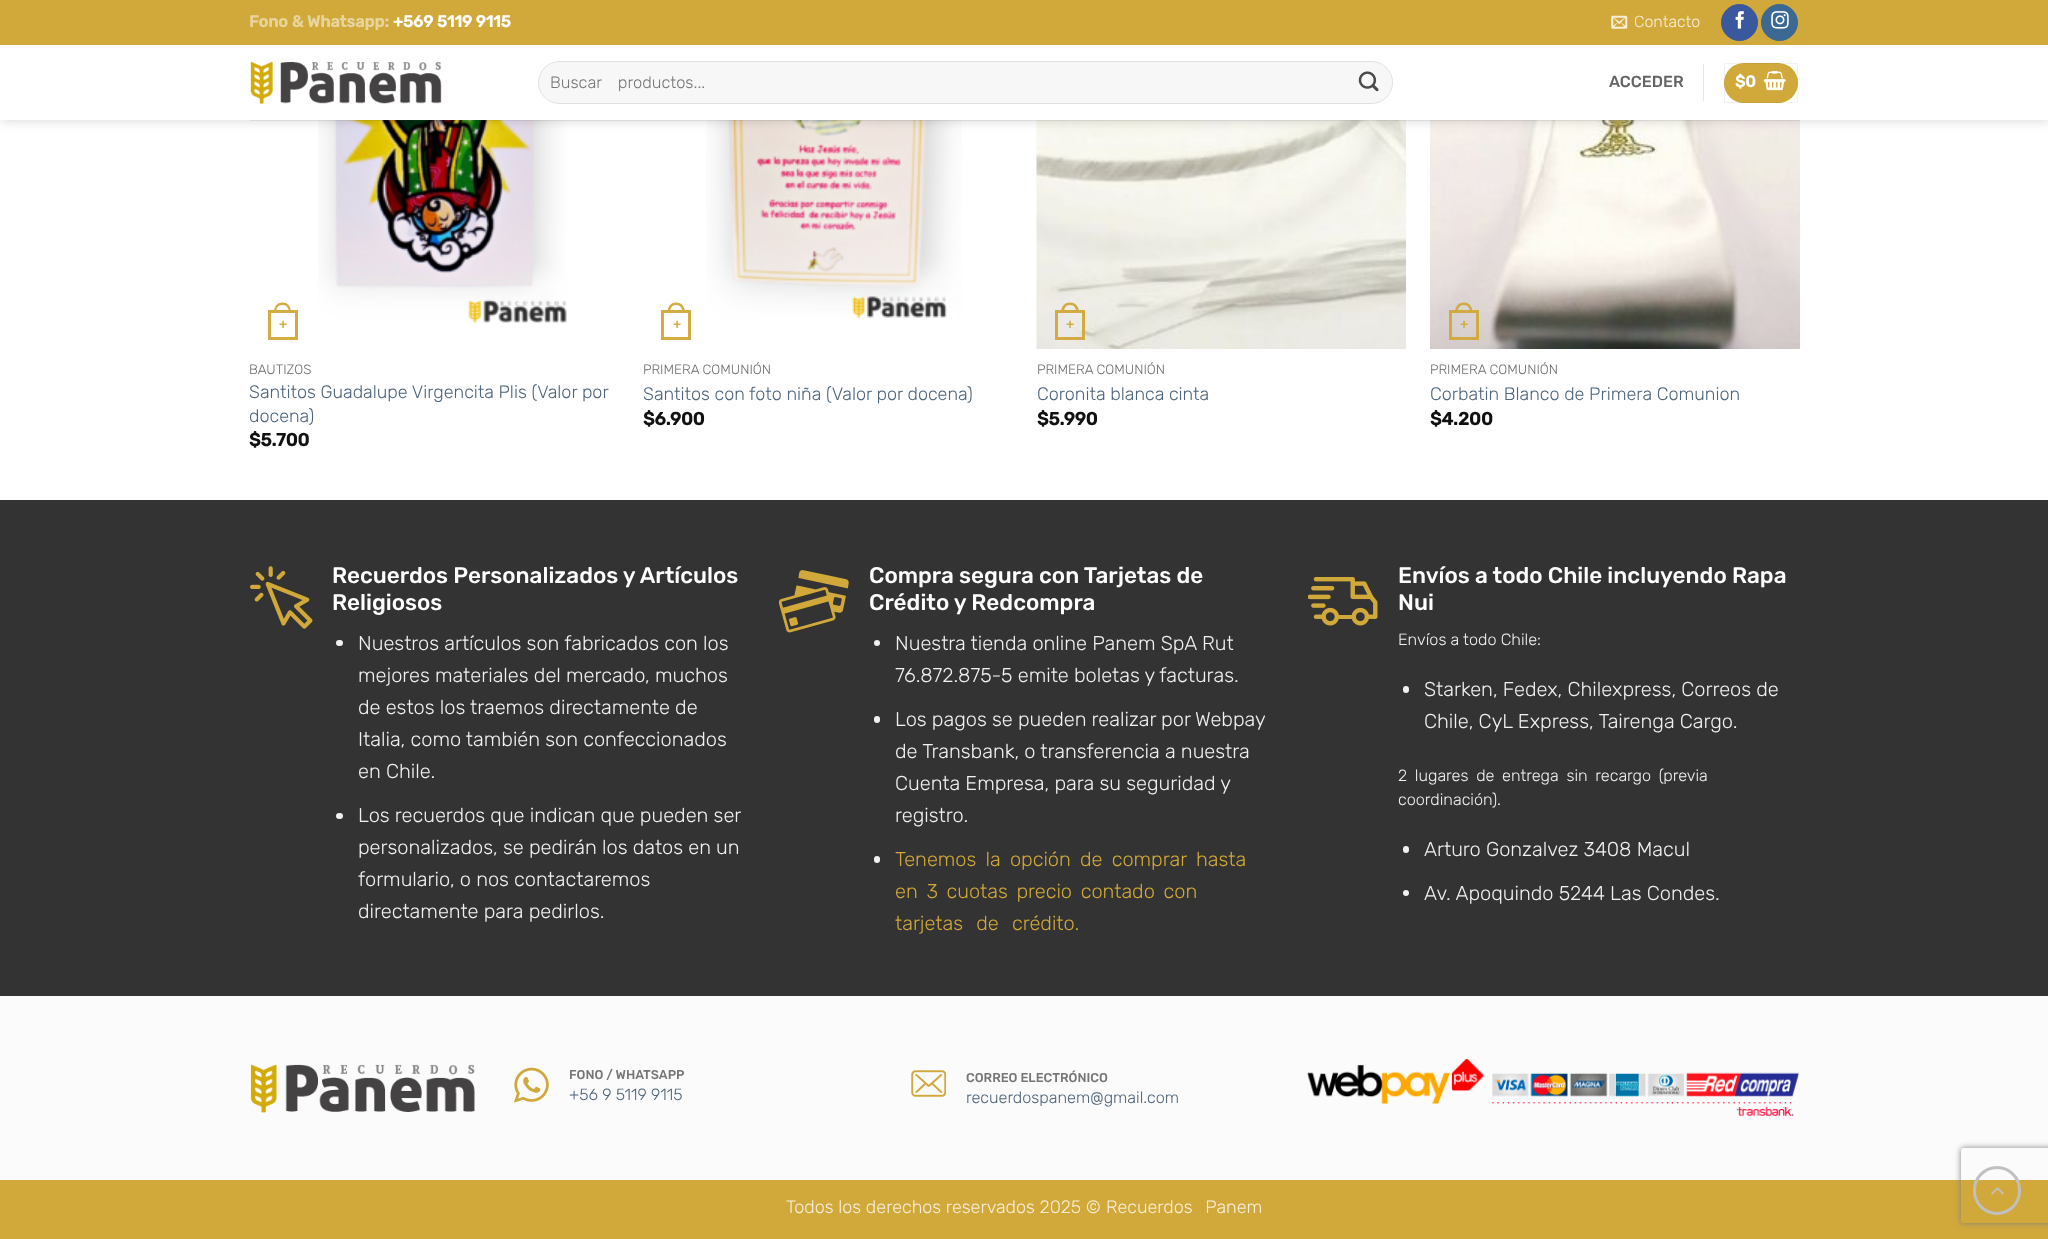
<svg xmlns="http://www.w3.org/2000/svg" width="2048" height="1239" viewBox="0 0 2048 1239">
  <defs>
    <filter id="blur1" x="-50%" y="-200%" width="200%" height="500%"><feGaussianBlur stdDeviation="6"/></filter>
    <clipPath id="clip1"><path d="M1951 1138H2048V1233H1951ZM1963.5 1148H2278.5C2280 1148 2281 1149 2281 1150.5V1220.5C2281 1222 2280 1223 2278.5 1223H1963.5C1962 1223 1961 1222 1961 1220.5V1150.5C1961 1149 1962 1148 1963.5 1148Z" clip-rule="evenodd"/></clipPath>
    <filter id="blur2" x="-50%" y="-200%" width="200%" height="500%"><feGaussianBlur stdDeviation="3"/></filter>
  </defs>
  <rect width="100%" height="100%" fill="#ffffff"/>
  <image x="318" y="120" width="249" height="204" href="img7.png"/>
  <image x="706" y="120" width="256" height="199" href="img8.png"/>
  <image x="1036" y="120" width="371" height="229" href="img9.png"/>
  <image x="1430" y="120" width="370" height="229" href="img10.png"/>
  <rect x="1" y="1" width="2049" height="120" fill="#000000" fill-opacity="0.15" filter="url(#blur1)"/>
  <rect x="0" y="0" width="2048" height="45" fill="#d1a83a"/>
  <text x="249" y="27" font-family="Rubik" font-size="16.25" font-weight="bold" fill="#e8d49d">Fono &amp; Whatsapp:</text>
  <text x="393" y="27" font-family="Rubik" font-size="16.25" font-weight="bold" fill="#ffffff">+569 5119 9115</text>
  <image x="1611" y="15" width="17" height="14" href="img1.png"/>
  <text x="1634" y="27" font-family="Rubik" font-size="16" font-weight="300" fill="#f6eed8">Contacto</text>
  <circle cx="1739.5" cy="22.5" r="18" fill="#3a589d" stroke="#3a589d"/>
  <image x="1735" y="11" width="9" height="18" href="img2.png"/>
  <circle cx="1779.5" cy="22.5" r="18" fill="#3b6994" stroke="#3b6994"/>
  <image x="1771" y="11" width="18" height="18" href="img3.png"/>
  <rect x="0" y="45" width="2048" height="75" fill="#ffffff"/>
  <image x="250" y="61" width="192" height="44" href="img4.png"/>
  <rect x="538" y="61" width="855" height="43" rx="21.5" fill="#f7f7f7"/>
  <rect x="538.5" y="61.5" width="854" height="42" rx="21" fill="none" stroke="#000000" stroke-opacity="0.09"/>
  <text x="550" y="88" word-spacing="12" font-family="Rubik" font-size="16.5" font-weight="300" fill="#767676">Buscar productos...</text>
  <image x="1358" y="71" width="21" height="21" href="img5.png"/>
  <text x="1609" y="87" font-family="Rubik" font-size="16" font-weight="500" fill="#656565">ACCEDER</text>
  <rect x="1703" y="64" width="1" height="37" fill="#e6e6e6"/>
  <rect x="1724" y="63" width="74" height="40" rx="20" fill="#d1a83a"/>
  <rect x="1724.5" y="63.5" width="73" height="39" fill="none" stroke="#000000" stroke-opacity="0.05"/>
  <text x="1735" y="87" font-family="Rubik" font-size="16" font-weight="bold" fill="#ffffff">$0</text>
  <image x="1763" y="70" width="23" height="21" href="img6.png"/>
  <rect x="250" y="120" width="1550" height="1" fill="#4a4a4a" fill-opacity="0.1"/>
  <rect x="269.5" y="311.5" width="27" height="27" fill="none" stroke="#d3ac44" stroke-width="3"/>
  <path d="M282.5 302.5C288.5 302.5 291 307 291 312.5H274C274 307 276.5 302.5 282.5 302.5ZM282.5 305C287 305 289 308.5 289 312.5H276C276 308.5 278 305 282.5 305Z" fill="#d3ac44" fill-rule="evenodd"/>
  <text x="279" y="329" font-family="Liberation Sans" font-size="14" font-weight="bold" fill="#d3ac44">+</text>
  <text x="249" y="374" font-family="Rubik" font-size="13.5" font-weight="300" fill="#6e6e6e">BAUTIZOS</text>
  <text x="249" y="398" font-family="Rubik" font-size="18" font-weight="300" fill="#4e657b">Santitos Guadalupe Virgencita Plis (Valor por</text>
  <text x="249" y="422" font-family="Rubik" font-size="18" font-weight="300" fill="#4e657b">docena)</text>
  <text x="249" y="446" font-family="Rubik" font-size="18" font-weight="bold" fill="#111111">$5.700</text>
  <rect x="662.5" y="311.5" width="27" height="27" fill="none" stroke="#d3ac44" stroke-width="3"/>
  <path d="M676 302.5C682 302.5 685 307 685 312.5H667.5C667.5 307 670.5 302.5 676 302.5ZM676 305C680.5 305 682.5 308.5 682.5 312.5H670C670 308.5 672 305 676 305Z" fill="#d3ac44" fill-rule="evenodd"/>
  <text x="673" y="329" font-family="Liberation Sans" font-size="14" font-weight="bold" fill="#d3ac44">+</text>
  <text x="643" y="374" font-family="Rubik" font-size="13.5" font-weight="300" fill="#6e6e6e">PRIMERA COMUNIÓN</text>
  <text x="643" y="400" font-family="Rubik" font-size="18" font-weight="300" fill="#4e657b">Santitos con foto niña (Valor por docena)</text>
  <text x="643" y="425" font-family="Rubik" font-size="18" font-weight="bold" fill="#111111">$6.900</text>
  <rect x="1056.5" y="311.5" width="27" height="27" fill="none" stroke="#d1a83a" stroke-opacity="0.95" stroke-width="3"/>
  <path d="M1070 302.5C1076 302.5 1079 307 1079 312.5H1061C1061 307 1064 302.5 1070 302.5ZM1070 305C1074.5 305 1076 308.5 1076 312.5H1064C1064 308.5 1065.5 305 1070 305Z" fill="#d2ab43" fill-rule="evenodd"/>
  <text x="1066" y="329" font-family="Liberation Sans" font-size="14" font-weight="bold" fill="#d3ac44">+</text>
  <text x="1037" y="374" font-family="Rubik" font-size="13.5" font-weight="300" fill="#6e6e6e">PRIMERA COMUNIÓN</text>
  <text x="1037" y="400" font-family="Rubik" font-size="18" font-weight="300" fill="#4e657b">Coronita blanca cinta</text>
  <text x="1037" y="425" font-family="Rubik" font-size="18" font-weight="bold" fill="#111111">$5.990</text>
  <rect x="1450.5" y="311.5" width="27" height="27" fill="none" stroke="#d1a83a" stroke-opacity="0.95" stroke-width="3"/>
  <path d="M1464 302.5C1469.5 302.5 1472.5 307 1472.5 312.5H1455C1455 307 1458 302.5 1464 302.5ZM1464 305C1468 305 1470 308.5 1470 312.5H1457.5C1457.5 308.5 1459.5 305 1464 305Z" fill="#d1a83a" fill-opacity="0.95" fill-rule="evenodd"/>
  <text x="1460" y="329" font-family="Liberation Sans" font-size="14" font-weight="bold" fill="#d3ac44">+</text>
  <text x="1430" y="374" font-family="Rubik" font-size="13.5" font-weight="300" fill="#6e6e6e">PRIMERA COMUNIÓN</text>
  <text x="1430" y="400" font-family="Rubik" font-size="18" font-weight="300" fill="#4e657b">Corbatin Blanco de Primera Comunion</text>
  <text x="1430" y="425" font-family="Rubik" font-size="18" font-weight="bold" fill="#111111">$4.200</text>
  <rect x="0" y="500" width="2048" height="496" fill="#333333"/>
  <image x="250" y="566" width="63" height="63" href="img11.png"/>
  <text x="332" y="583" font-family="Rubik" font-size="22.5" font-weight="500" fill="#ffffff">Recuerdos Personalizados y Artículos</text>
  <text x="332" y="610" font-family="Rubik" font-size="22.5" font-weight="500" fill="#ffffff">Religiosos</text>
  <rect x="336" y="640" width="7" height="6" rx="3" fill="#f1f1f1"/>
  <text x="358" y="650" font-family="Rubik" font-size="20" font-weight="300" fill="#f1f1f1">Nuestros artículos son fabricados con los</text>
  <text x="358" y="682" font-family="Rubik" font-size="20" font-weight="300" fill="#f1f1f1">mejores materiales del mercado, muchos</text>
  <text x="358" y="714" font-family="Rubik" font-size="20" font-weight="300" fill="#f1f1f1">de estos los traemos directamente de</text>
  <text x="358" y="746" font-family="Rubik" font-size="20" font-weight="300" fill="#f1f1f1">Italia, como también son confeccionados</text>
  <text x="358" y="778" font-family="Rubik" font-size="20" font-weight="300" fill="#f1f1f1">en Chile.</text>
  <rect x="336" y="813" width="7" height="6" rx="3" fill="#f1f1f1"/>
  <text x="358" y="822" font-family="Rubik" font-size="20" font-weight="300" fill="#f1f1f1">Los recuerdos que indican que pueden ser</text>
  <text x="358" y="854" font-family="Rubik" font-size="20" font-weight="300" fill="#f1f1f1">personalizados, se pedirán los datos en un</text>
  <text x="358" y="886" font-family="Rubik" font-size="20" font-weight="300" fill="#f1f1f1">formulario, o nos contactaremos</text>
  <text x="358" y="918" font-family="Rubik" font-size="20" font-weight="300" fill="#f1f1f1">directamente para pedirlos.</text>
  <image x="779" y="570" width="70" height="63" href="img12.png"/>
  <text x="869" y="583" font-family="Rubik" font-size="22.5" font-weight="500" fill="#ffffff">Compra segura con Tarjetas de</text>
  <text x="869" y="610" font-family="Rubik" font-size="22.5" font-weight="500" fill="#ffffff">Crédito y Redcompra</text>
  <circle cx="877" cy="643" r="3" fill="#f1f1f1"/>
  <text x="895" y="650" font-family="Rubik" font-size="20" font-weight="300" fill="#f1f1f1">Nuestra tienda online Panem SpA Rut</text>
  <text x="895" y="682" font-family="Rubik" font-size="20" font-weight="300" fill="#f1f1f1">76.872.875-5 emite boletas y facturas.</text>
  <rect x="874" y="716" width="6" height="7" rx="3" fill="#f1f1f1"/>
  <text x="895" y="726" font-family="Rubik" font-size="20" font-weight="300" fill="#f1f1f1">Los pagos se pueden realizar por Webpay</text>
  <text x="895" y="758" font-family="Rubik" font-size="20" font-weight="300" fill="#f1f1f1">de Transbank, o transferencia a nuestra</text>
  <text x="895" y="790" font-family="Rubik" font-size="20" font-weight="300" fill="#f1f1f1">Cuenta Empresa, para su seguridad y</text>
  <text x="895" y="822" font-family="Rubik" font-size="20" font-weight="300" fill="#f1f1f1">registro.</text>
  <rect x="874" y="856" width="6" height="7" rx="3" fill="#f1f1f1"/>
  <text x="895" y="866" word-spacing="4" font-family="Rubik" font-size="20" font-weight="300" fill="#d1a83a">Tenemos la opción de comprar hasta</text>
  <text x="895" y="898" word-spacing="3.5" font-family="Rubik" font-size="20" font-weight="300" fill="#d1a83a">en 3 cuotas precio contado con</text>
  <text x="895" y="930" word-spacing="8" font-family="Rubik" font-size="20" font-weight="300" fill="#d1a83a">tarjetas de crédito.</text>
  <image x="1308" y="577" width="70" height="49" href="img13.png"/>
  <text x="1398" y="583" font-family="Rubik" font-size="22.5" font-weight="500" fill="#ffffff">Envíos a todo Chile incluyendo Rapa</text>
  <text x="1398" y="610" font-family="Rubik" font-size="22.5" font-weight="500" fill="#ffffff">Nui</text>
  <text x="1398" y="645" font-family="Rubik" font-size="16.25" font-weight="300" fill="#f1f1f1">Envíos a todo Chile:</text>
  <rect x="1403" y="686" width="6" height="7" rx="3" fill="#f1f1f1"/>
  <text x="1424" y="696" font-family="Rubik" font-size="20" font-weight="300" fill="#f1f1f1">Starken, Fedex, Chilexpress, Correos de</text>
  <text x="1424" y="728" font-family="Rubik" font-size="20" font-weight="300" fill="#f1f1f1">Chile, CyL Express, Tairenga Cargo.</text>
  <text x="1398" y="781" word-spacing="3.5" font-family="Rubik" font-size="16.25" font-weight="300" fill="#f1f1f1">2 lugares de entrega sin recargo (previa</text>
  <text x="1398" y="805" font-family="Rubik" font-size="16.25" font-weight="300" fill="#f1f1f1">coordinación).</text>
  <rect x="1403" y="846" width="6" height="7" rx="3" fill="#f1f1f1"/>
  <text x="1424" y="856" font-family="Rubik" font-size="20" font-weight="300" fill="#f1f1f1">Arturo Gonzalvez 3408 Macul</text>
  <circle cx="1406" cy="893" r="3" fill="#f1f1f1"/>
  <text x="1424" y="900" font-family="Rubik" font-size="20" font-weight="300" fill="#f1f1f1">Av. Apoquindo 5244 Las Condes.</text>
  <rect x="0" y="996" width="2048" height="184" fill="#fbfbfb"/>
  <image x="250" y="1064" width="225" height="49" href="img14.png"/>
  <image x="514" y="1067" width="35" height="36" href="img15.png"/>
  <text x="569" y="1079" font-family="Rubik" font-size="12.75" font-weight="500" fill="#767676">FONO / WHATSAPP</text>
  <text x="569" y="1100" font-family="Rubik" font-size="16.25" font-weight="300" fill="#4e657b">+56 9 5119 9115</text>
  <image x="911" y="1070" width="35" height="27" href="img16.png"/>
  <text x="966" y="1082" font-family="Rubik" font-size="12.75" font-weight="500" fill="#767676">CORREO ELECTRÓNICO</text>
  <text x="966" y="1103" font-family="Rubik" font-size="16.25" font-weight="300" fill="#4e657b">recuerdospanem@gmail.com</text>
  <image x="1307" y="1059" width="492" height="57" href="img17.png"/>
  <rect x="0" y="1180" width="2048" height="59" fill="#d1a83a"/>
  <text x="786" y="1213" font-family="Rubik" font-size="18" font-weight="300" fill="#f6eed8">Todos los derechos reservados 2025 ©</text>
  <text x="1106" y="1213" word-spacing="8" font-family="Rubik" font-size="18" font-weight="300" fill="#f6eed8">Recuerdos Panem</text>
  <g clip-path="url(#clip1)">
    <rect x="1961" y="1148" width="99" height="75" rx="2.5" fill="#808080" filter="url(#blur2)"/>
  </g>
  <rect x="1974.5" y="1167.5" width="45" height="46" rx="22.5" fill="none" stroke="#c0c0c0" stroke-width="3"/>
  <image x="1991" y="1187" width="13" height="8" href="img18.png"/>
</svg>
